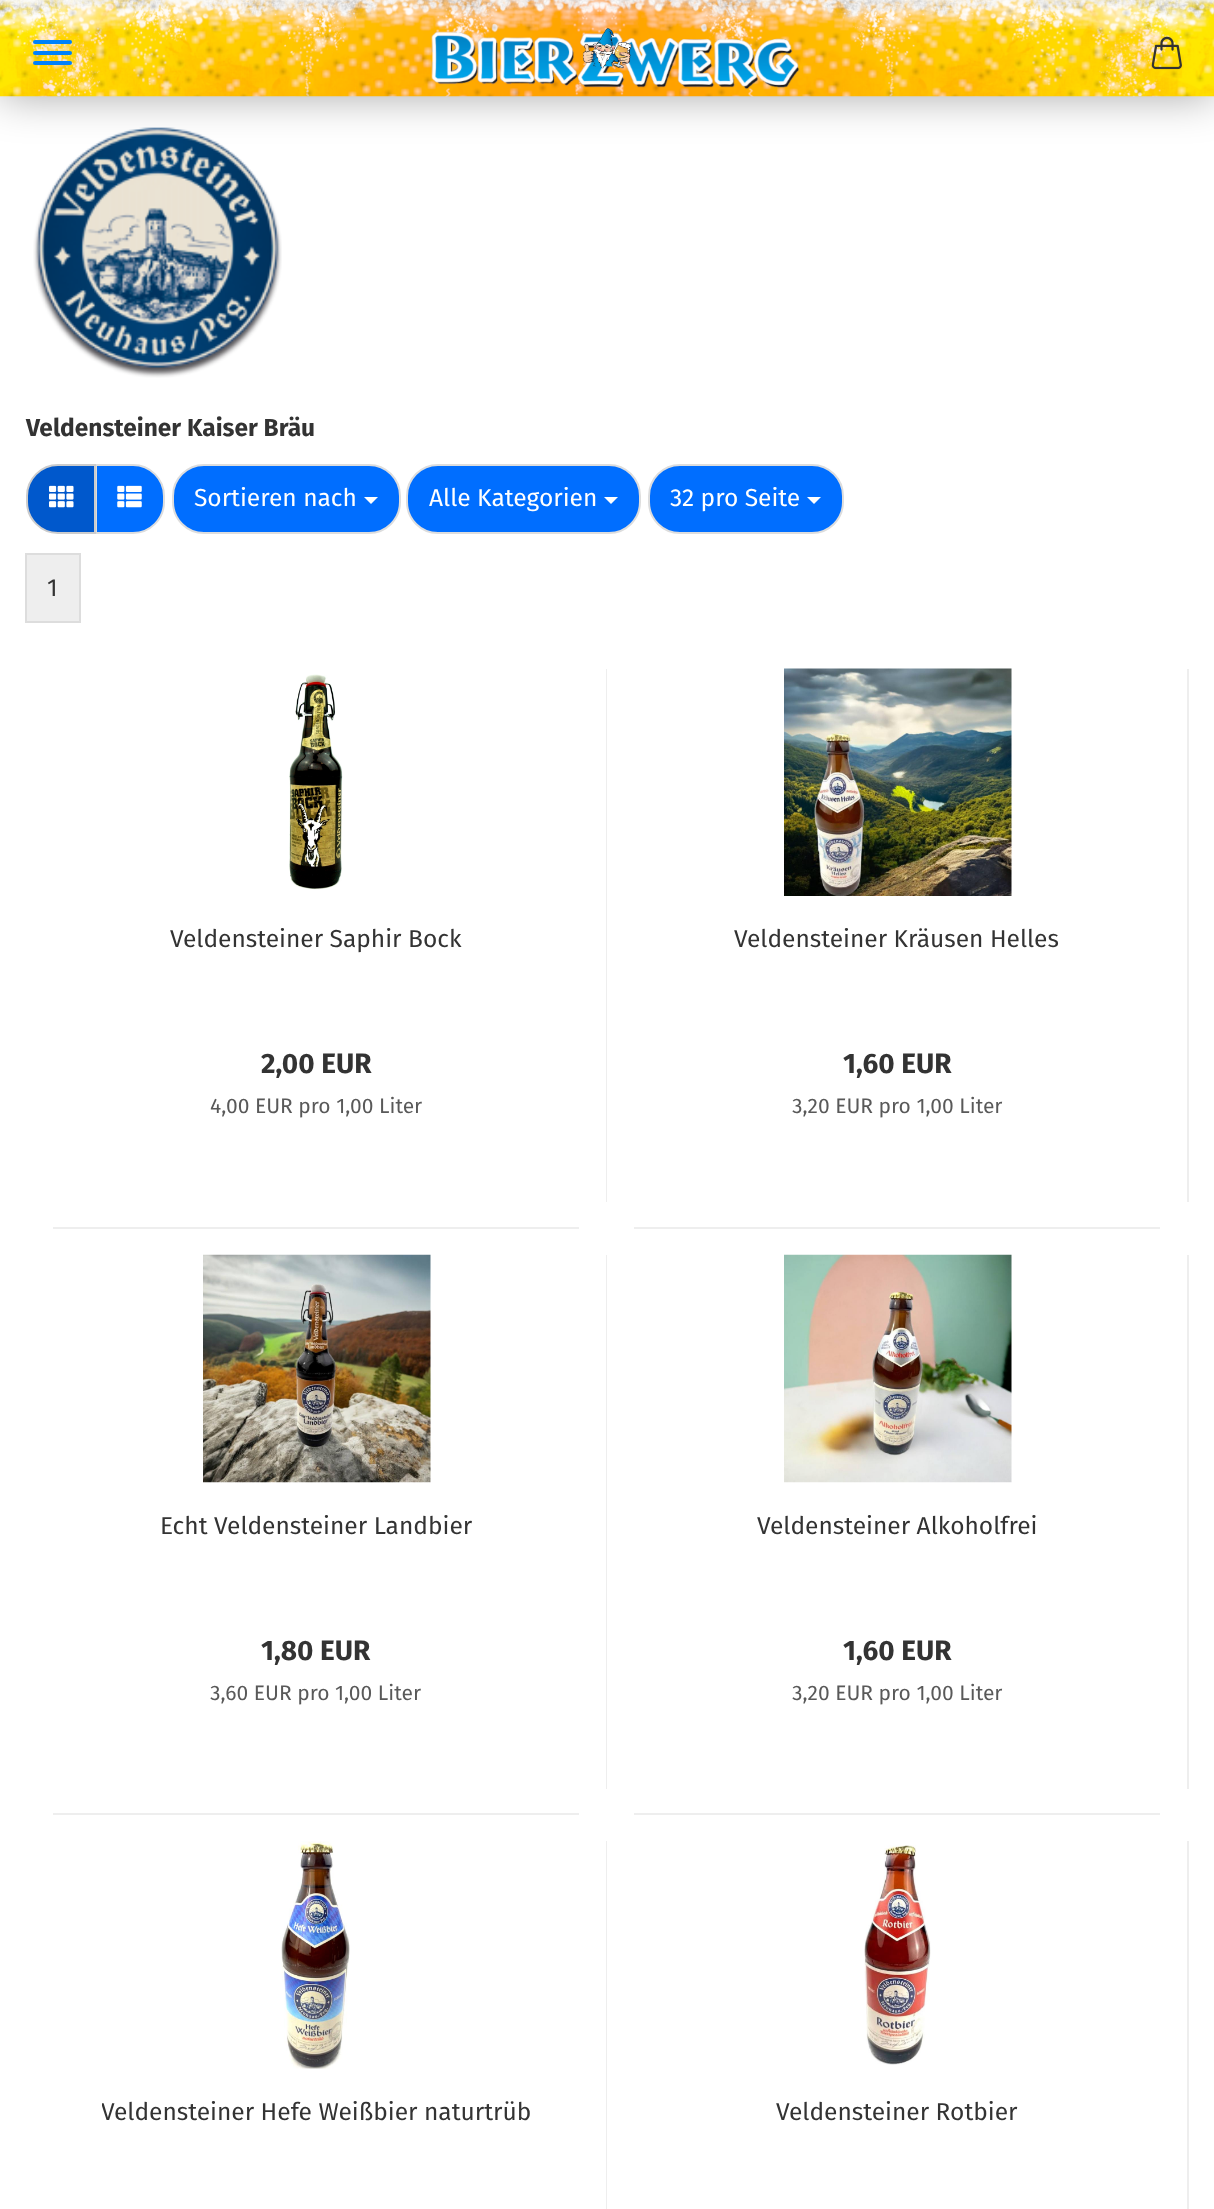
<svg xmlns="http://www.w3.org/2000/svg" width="1214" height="2209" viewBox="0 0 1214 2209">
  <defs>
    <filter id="blur1" x="-50%" y="-200%" width="200%" height="500%"><feGaussianBlur stdDeviation="22"/></filter>
    <clipPath id="clip1"><rect x="102" y="2095" width="428" height="35"/></clipPath>
  </defs>
  <rect width="100%" height="100%" fill="#ffffff"/>
  <image x="33" y="127" width="249" height="251" href="img4.png"/>
  <rect x="0" y="0" width="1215" height="96" fill="#000000" fill-opacity="0.35" filter="url(#blur1)"/>
  <image x="0" y="0" width="1214" height="97" href="img1.png"/>
  <image x="582" y="28" width="50" height="41" href="img2.png"/>
  <image x="1151" y="36" width="31" height="34" href="img3.png"/>
  <rect x="33" y="51" width="39" height="4" rx="2" fill="#0081fc"/>
  <rect x="33" y="40" width="39" height="4" rx="2" fill="#0081fc"/>
  <rect x="33" y="61" width="39" height="4" rx="2" fill="#0081fc"/>
  <text x="26" y="436" font-family="Fira Sans" font-size="24.5" font-weight="bold" fill="#333333">Veldensteiner Kaiser Bräu</text>
  <path d="M96 465H133C150 465 164 479 164 496V502C164 519 150 533 133 533H96Z" fill="#006eff" stroke="#dddddd" stroke-width="2"/>
  <path d="M58 465H95V533H58C41 533 27 519 27 502V496C27 479 41 465 58 465Z" fill="#0058cc" stroke="#cccccc" stroke-width="2"/>
  <image x="49" y="485" width="25" height="23" href="img5.png"/>
  <image x="117" y="485" width="25" height="23" href="img6.png"/>
  <rect x="173" y="465" width="227" height="68" rx="31" fill="#006eff" stroke="#dddddd" stroke-width="2"/>
  <text x="194" y="506" font-family="Fira Sans" font-size="24.5" fill="#ffffff">Sortieren nach</text>
  <path d="M364 497H378L371 504Z" fill="#ffffff"/>
  <rect x="407" y="465" width="233" height="68" rx="31" fill="#006eff" stroke="#dddddd" stroke-width="2"/>
  <text x="429" y="506" font-family="Fira Sans" font-size="24.5" fill="#ffffff">Alle Kategorien</text>
  <path d="M604 497H618L611 504Z" fill="#ffffff"/>
  <rect x="649" y="465" width="194" height="68" rx="31" fill="#006eff" stroke="#dddddd" stroke-width="2"/>
  <text x="670" y="506" font-family="Fira Sans" font-size="24.5" fill="#ffffff">32 pro Seite</text>
  <path d="M807 497H821L814 504Z" fill="#ffffff"/>
  <rect x="26" y="554" width="54" height="68" fill="#eeeeee" stroke="#dddddd" stroke-width="2"/>
  <text x="47" y="596" font-family="Fira Sans" font-size="24.5" fill="#333333">1</text>
  <rect x="606" y="669" width="1" height="533" fill="#eeeeee"/>
  <rect x="53" y="1227" width="526" height="2" fill="#eeeeee"/>
  <image x="289" y="674" width="54" height="216" href="img7.png"/>
  <text x="170" y="947" font-family="Fira Sans" font-size="24.5" fill="#333333">Veldensteiner Saphir Bock</text>
  <text x="261" y="1073" font-family="Fira Sans" font-size="28" font-weight="bold" fill="#333333">2,00 EUR</text>
  <text x="210" y="1113" font-family="Fira Sans" font-size="21" fill="#595959">4,00 EUR pro 1,00 Liter</text>
  <rect x="1187" y="669" width="2" height="533" fill="#eeeeee"/>
  <rect x="634" y="1227" width="526" height="2" fill="#eeeeee"/>
  <image x="784" y="668" width="228" height="228" href="img8.png"/>
  <text x="734" y="947" font-family="Fira Sans" font-size="24.5" fill="#333333">Veldensteiner Kräusen Helles</text>
  <text x="843" y="1073" font-family="Fira Sans" font-size="28" font-weight="bold" fill="#333333">1,60 EUR</text>
  <text x="792" y="1113" font-family="Fira Sans" font-size="21" fill="#595959">3,20 EUR pro 1,00 Liter</text>
  <rect x="606" y="1255" width="1" height="534" fill="#eeeeee"/>
  <rect x="53" y="1813" width="526" height="2" fill="#eeeeee"/>
  <image x="203" y="1254" width="228" height="229" href="img9.png"/>
  <text x="160" y="1534" font-family="Fira Sans" font-size="24.5" fill="#333333">Echt Veldensteiner Landbier</text>
  <text x="261" y="1660" font-family="Fira Sans" font-size="28" font-weight="bold" fill="#333333">1,80 EUR</text>
  <text x="210" y="1700" font-family="Fira Sans" font-size="21" fill="#595959">3,60 EUR pro 1,00 Liter</text>
  <rect x="1187" y="1255" width="2" height="534" fill="#eeeeee"/>
  <rect x="634" y="1813" width="526" height="2" fill="#eeeeee"/>
  <image x="784" y="1254" width="228" height="229" href="img10.png"/>
  <text x="757" y="1534" font-family="Fira Sans" font-size="24.5" fill="#333333">Veldensteiner Alkoholfrei</text>
  <text x="843" y="1660" font-family="Fira Sans" font-size="28" font-weight="bold" fill="#333333">1,60 EUR</text>
  <text x="792" y="1700" font-family="Fira Sans" font-size="21" fill="#595959">3,20 EUR pro 1,00 Liter</text>
  <rect x="606" y="1841" width="1" height="368" fill="#eeeeee"/>
  <image x="281" y="1841" width="69" height="228" href="img11.png"/>
  <g clip-path="url(#clip1)">
    <text x="101" y="2120" font-family="Fira Sans" font-size="24.5" fill="#333333">Veldensteiner Hefe Weißbier naturtrüb</text>
  </g>
  <rect x="1187" y="1841" width="2" height="368" fill="#eeeeee"/>
  <image x="864" y="1845" width="67" height="220" href="img12.png"/>
  <text x="776" y="2120" font-family="Fira Sans" font-size="24.5" fill="#333333">Veldensteiner Rotbier</text>
</svg>
